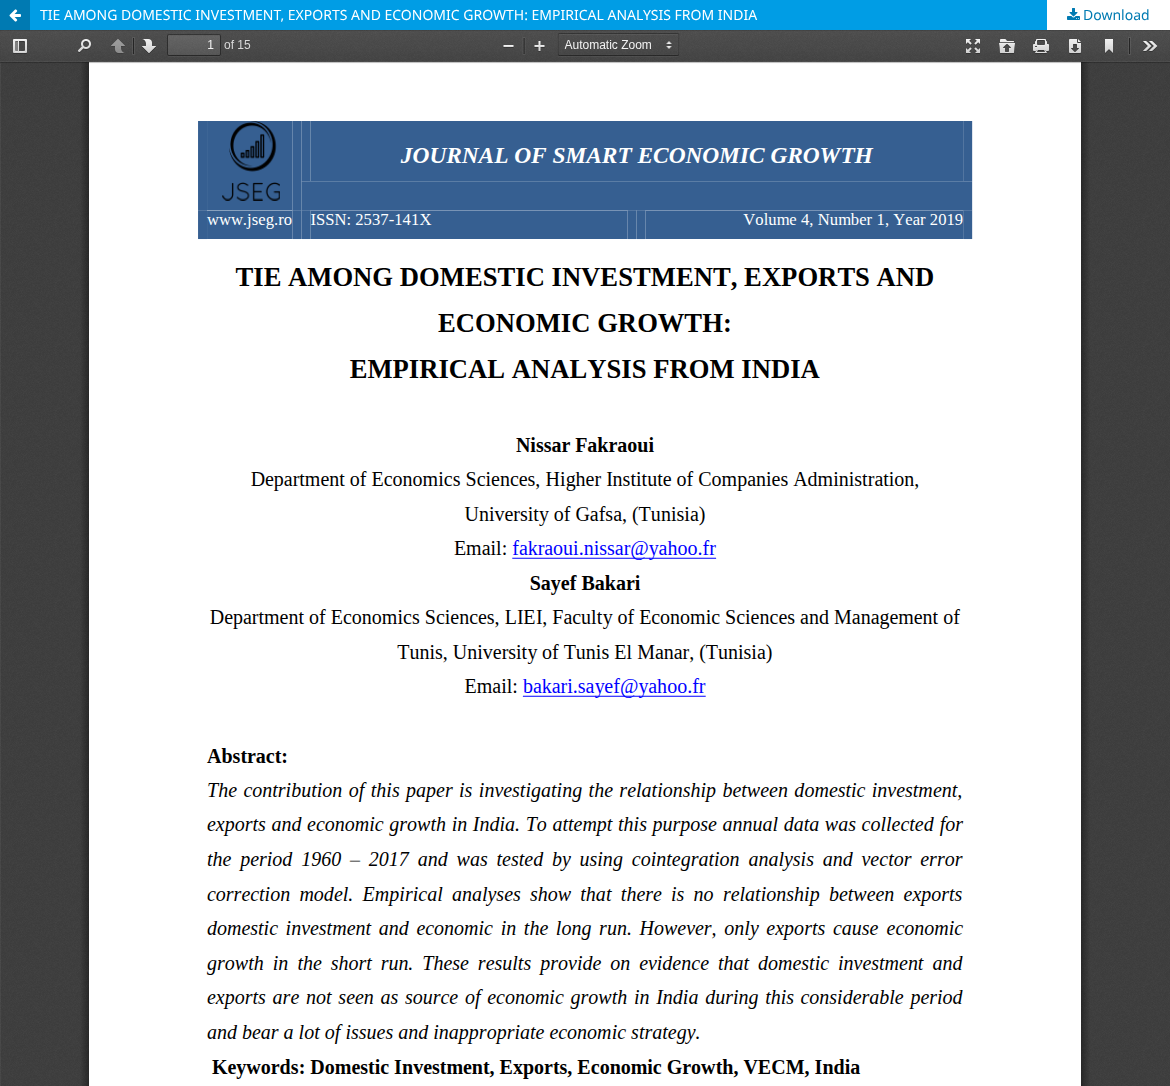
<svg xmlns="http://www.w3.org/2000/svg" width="1170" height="1086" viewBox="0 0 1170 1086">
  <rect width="100%" height="100%" fill="#ffffff"/>
  <rect x="30" y="0" width="1017" height="30" fill="#009de5"/>
  <rect x="0" y="0" width="30" height="30" fill="#007ab2"/>
  <image x="9" y="9" width="12" height="13" href="img1.png"/>
  <text x="40" y="20" font-family="Noto Sans" font-size="14" fill="#ffffff">TIE AMONG DOMESTIC INVESTMENT, EXPORTS AND ECONOMIC GROWTH: EMPIRICAL ANALYSIS FROM INDIA</text>
  <image x="1067" y="8" width="13" height="12" href="img2.png"/>
  <text x="1083" y="20" font-family="Noto Sans" font-size="14" fill="#007ab2">Download</text>
  <image x="0" y="30" width="1170" height="1056" href="img3.png"/>
</svg>
